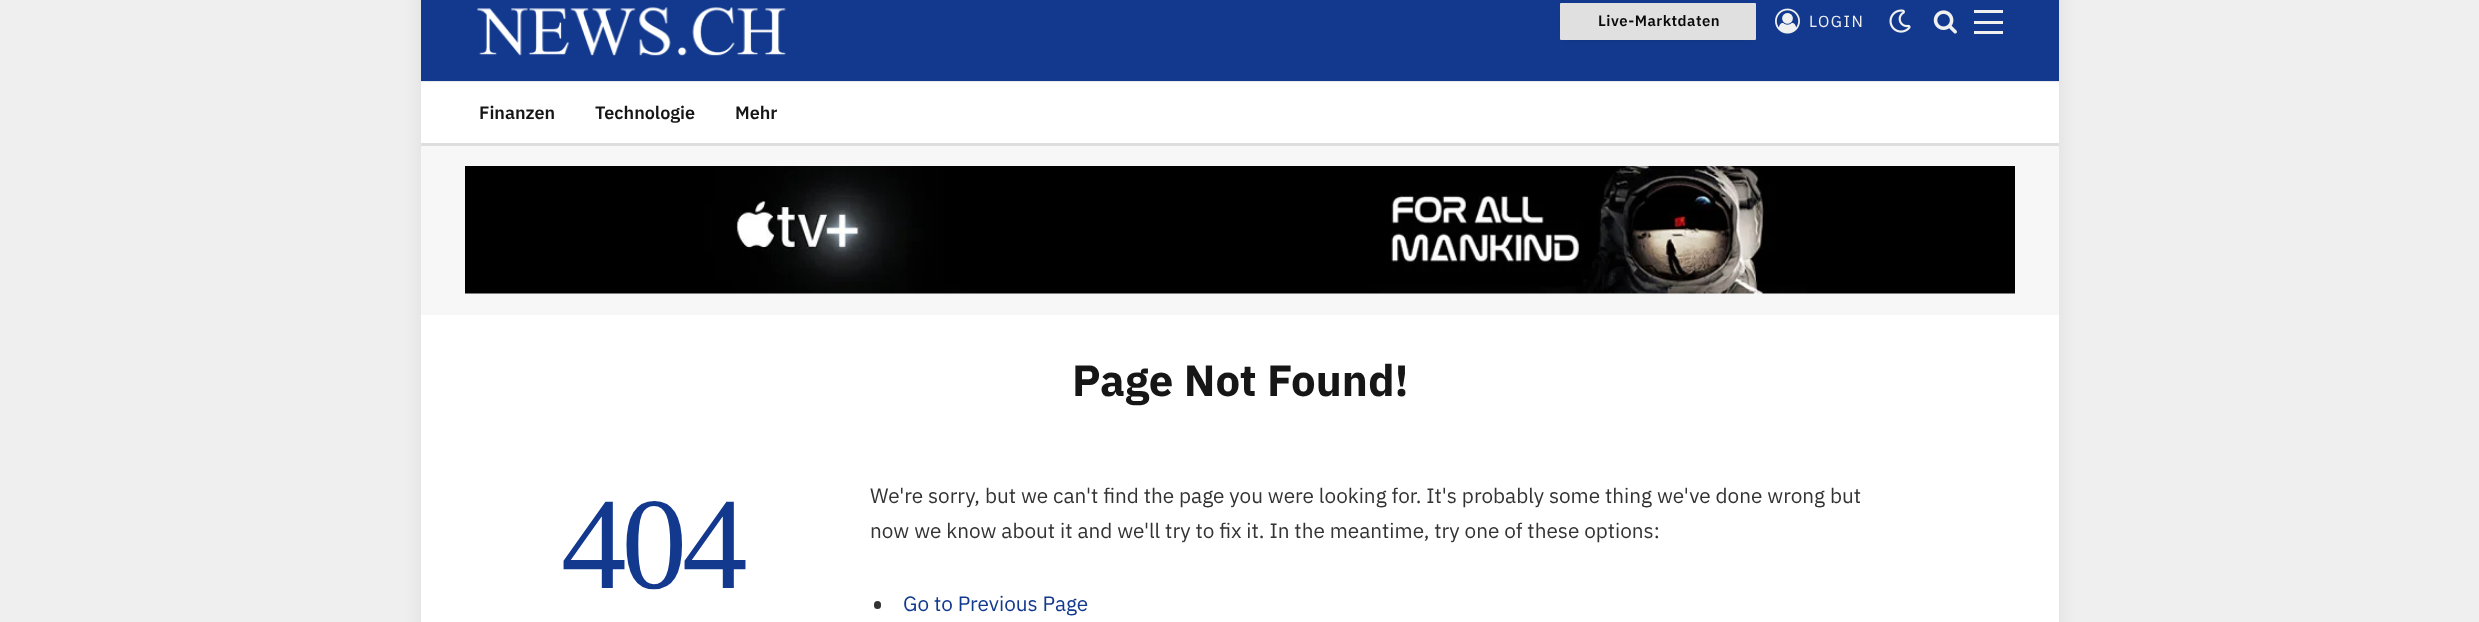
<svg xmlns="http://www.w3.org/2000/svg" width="2479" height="622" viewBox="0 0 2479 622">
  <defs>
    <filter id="blur1" x="-50%" y="-200%" width="200%" height="500%"><feGaussianBlur stdDeviation="9.5"/></filter>
    <filter id="blur2" x="-50%" y="-200%" width="200%" height="500%"><feGaussianBlur stdDeviation="4.5"/></filter>
  </defs>
  <rect width="100%" height="100%" fill="#efefef"/>
  <rect x="421" y="-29" width="1638" height="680" fill="#000000" fill-opacity="0.08" filter="url(#blur1)"/>
  <rect x="421" y="82" width="1638" height="540" fill="#ffffff"/>
  <rect x="421" y="0" width="1638" height="81" fill="#12398e"/>
  <image x="477" y="7" width="309" height="49" href="img1.png"/>
  <rect x="1565" y="10" width="186" height="28" fill="#000000" fill-opacity="0.16" filter="url(#blur2)"/>
  <rect x="1560" y="3" width="196" height="37" rx="1" fill="#e0e0e0"/>
  <text x="1598" y="26" font-family="IBM Plex Sans" font-size="15" font-weight="600" letter-spacing="0.5" fill="#0a0a0a">Live-Marktdaten</text>
  <image x="1775" y="8" width="25" height="26" href="img2.png"/>
  <text x="1809" y="27" font-family="IBM Plex Sans" font-size="16" letter-spacing="1.5" fill="#f0f0f0">LOGIN</text>
  <image x="1889" y="9" width="22" height="24" href="img3.png"/>
  <image x="1933" y="10" width="24" height="24" href="img4.png"/>
  <rect x="1974" y="31" width="29" height="3" fill="#f0f0f0"/>
  <rect x="1974" y="10" width="29" height="3" fill="#f0f0f0"/>
  <rect x="1974" y="21" width="29" height="3" fill="#f0f0f0"/>
  <rect x="421" y="81" width="1638" height="1" fill="#e8e8e8"/>
  <rect x="421" y="143" width="1638" height="3" fill="#dedede"/>
  <text x="479" y="119" font-family="IBM Plex Sans" font-size="18" font-weight="600" fill="#161616">Finanzen</text>
  <text x="595" y="119" font-family="IBM Plex Sans" font-size="18" font-weight="600" fill="#161616">Technologie</text>
  <text x="735" y="119" font-family="IBM Plex Sans" font-size="18" font-weight="600" fill="#161616">Mehr</text>
  <rect x="421" y="146" width="1638" height="169" fill="#f7f7f7"/>
  <image x="465" y="166" width="1550" height="128" href="img5.png"/>
  <text x="1072" y="396" font-family="IBM Plex Sans" font-size="43.75" font-weight="bold" fill="#161616">Page Not Found!</text>
  <text x="561" y="588" font-family="Liberation Serif" font-size="131" letter-spacing="-5" fill="#12398e">404</text>
  <text x="870" y="503" font-family="IBM Plex Sans" font-size="20.75" fill="#333333">We're sorry, but we can't find the page you were looking for. It's probably some thing we've done wrong but</text>
  <text x="870" y="538" font-family="IBM Plex Sans" font-size="20.75" fill="#333333">now we know about it and we'll try to fix it. In the meantime, try one of these options:</text>
  <rect x="874" y="601" width="7" height="8" rx="3.5" fill="#333333"/>
  <text x="903" y="611" font-family="IBM Plex Sans" font-size="20.75" fill="#12398e">Go to Previous Page</text>
</svg>
